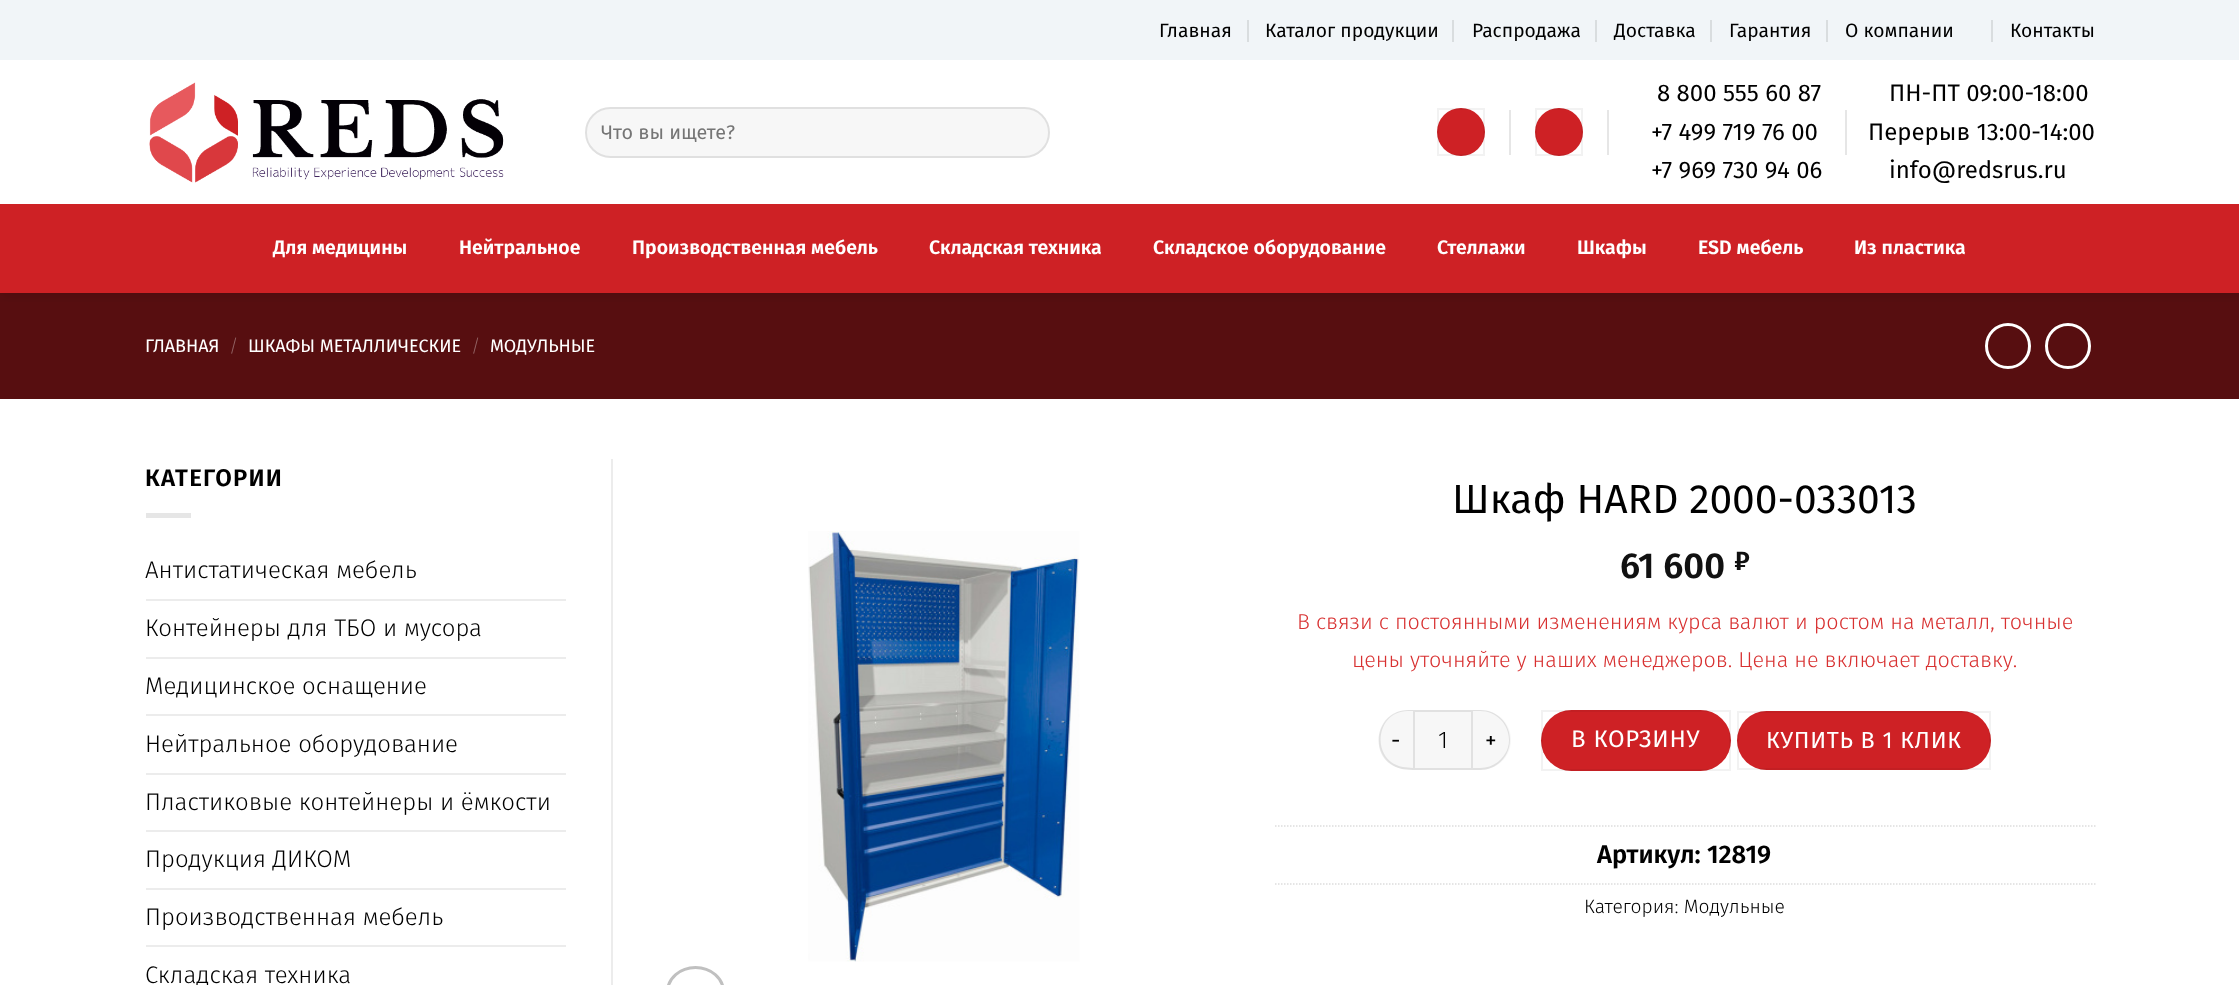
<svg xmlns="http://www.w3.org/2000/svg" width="2239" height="985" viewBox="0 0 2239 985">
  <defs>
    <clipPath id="clip1"><rect x="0" y="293" width="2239" height="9"/></clipPath>
    <filter id="blur1" x="-50%" y="-200%" width="200%" height="500%"><feGaussianBlur stdDeviation="7.5"/></filter>
  </defs>
  <rect width="100%" height="100%" fill="#ffffff"/>
  <rect x="0" y="293" width="2239" height="106" fill="#570e10"/>
  <g clip-path="url(#clip1)">
    <rect x="2" y="2" width="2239" height="292" fill="#000000" fill-opacity="0.15" filter="url(#blur1)"/>
  </g>
  <rect x="0" y="0" width="2239" height="60" fill="#f1f5f8"/>
  <text x="1159" y="37" font-family="Fira Sans" font-size="19.25" fill="#000000">Главная</text>
  <rect x="1247" y="20" width="2" height="22" fill="#d9dddf"/>
  <text x="1265" y="37" font-family="Fira Sans" font-size="19.25" fill="#000000">Каталог продукции</text>
  <rect x="1452" y="20" width="2" height="22" fill="#d9dddf"/>
  <text x="1472" y="37" font-family="Fira Sans" font-size="19.25" fill="#000000">Распродажа</text>
  <rect x="1595" y="20" width="2" height="22" fill="#d9dddf"/>
  <text x="1614" y="37" font-family="Fira Sans" font-size="19.25" fill="#000000">Доставка</text>
  <rect x="1710" y="20" width="2" height="22" fill="#d9dddf"/>
  <text x="1729" y="37" font-family="Fira Sans" font-size="19.25" fill="#000000">Гарантия</text>
  <rect x="1826" y="20" width="2" height="22" fill="#d9dddf"/>
  <text x="1845" y="37" font-family="Fira Sans" font-size="19.25" fill="#000000">О компании</text>
  <rect x="1991" y="20" width="2" height="22" fill="#d9dddf"/>
  <text x="2010" y="37" font-family="Fira Sans" font-size="19.25" fill="#000000">Контакты</text>
  <image x="149" y="82" width="355" height="101" href="img1.png"/>
  <rect x="585" y="107" width="465" height="51" rx="25.5" fill="#f7f7f7"/>
  <rect x="586" y="108" width="463" height="49" rx="24.5" fill="none" stroke="#000000" stroke-opacity="0.09" stroke-width="2"/>
  <text x="601" y="139" font-family="Fira Sans" font-size="19.75" fill="#757575">Что вы ищете?</text>
  <circle cx="1461" cy="132" r="24" fill="#ce2125"/>
  <rect x="1438" y="109" width="46" height="46" fill="none" stroke="#000000" stroke-opacity="0.05" stroke-width="2"/>
  <rect x="1509" y="110" width="2" height="45" fill="#e6e6e6"/>
  <circle cx="1559" cy="132" r="24" fill="#ce2125"/>
  <rect x="1536" y="109" width="46" height="46" fill="none" stroke="#000000" stroke-opacity="0.05" stroke-width="2"/>
  <rect x="1607" y="110" width="2" height="45" fill="#e6e6e6"/>
  <text x="1657" y="101" font-family="Fira Sans" font-size="24" fill="#000000">8 800 555 60 87</text>
  <text x="1651" y="140" font-family="Fira Sans" font-size="24" fill="#000000">+7 499 719 76 00</text>
  <text x="1651" y="178" font-family="Fira Sans" font-size="24" fill="#000000">+7 969 730 94 06</text>
  <rect x="1845" y="110" width="2" height="45" fill="#e6e6e6"/>
  <text x="1889" y="101" font-family="Fira Sans" font-size="24" fill="#000000">ПН-ПТ 09:00-18:00</text>
  <text x="1868" y="140" font-family="Fira Sans" font-size="24" fill="#000000">Перерыв 13:00-14:00</text>
  <text x="1889" y="178" font-family="Fira Sans" font-size="24" fill="#000000">info@redsrus.ru</text>
  <rect x="0" y="204" width="2239" height="89" fill="#ce2125"/>
  <text x="273" y="254" font-family="Fira Sans" font-size="19.5" font-weight="600" fill="#ffffff">Для медицины</text>
  <text x="459" y="254" font-family="Fira Sans" font-size="19.5" font-weight="600" fill="#ffffff">Нейтральное</text>
  <text x="632" y="254" font-family="Fira Sans" font-size="19.5" font-weight="600" fill="#ffffff">Производственная мебель</text>
  <text x="929" y="254" font-family="Fira Sans" font-size="19.5" font-weight="600" fill="#ffffff">Складская техника</text>
  <text x="1153" y="254" font-family="Fira Sans" font-size="19.5" font-weight="600" fill="#ffffff">Складское оборудование</text>
  <text x="1437" y="254" font-family="Fira Sans" font-size="19.5" font-weight="600" fill="#ffffff">Стеллажи</text>
  <text x="1577" y="254" font-family="Fira Sans" font-size="19.5" font-weight="600" fill="#ffffff">Шкафы</text>
  <text x="1698" y="254" font-family="Fira Sans" font-size="19.5" font-weight="600" fill="#ffffff">ESD мебель</text>
  <text x="1854" y="254" font-family="Fira Sans" font-size="19.5" font-weight="600" fill="#ffffff">Из пластика</text>
  <text x="145" y="352" font-family="Fira Sans" font-size="18" fill="#ffffff">ГЛАВНАЯ</text>
  <text x="229" y="352" font-family="Fira Sans" font-size="18" font-weight="300" fill="#926264">/</text>
  <text x="248" y="352" font-family="Fira Sans" font-size="18" fill="#ffffff">ШКАФЫ МЕТАЛЛИЧЕСКИЕ</text>
  <text x="471" y="352" font-family="Fira Sans" font-size="18" font-weight="300" fill="#926264">/</text>
  <text x="490" y="352" font-family="Fira Sans" font-size="18" fill="#ffffff">МОДУЛЬНЫЕ</text>
  <circle cx="2008" cy="346" r="21.5" fill="none" stroke="#ffffff" stroke-width="3"/>
  <circle cx="2068" cy="346" r="21.5" fill="none" stroke="#ffffff" stroke-width="3"/>
  <text x="145" y="486" font-family="Fira Sans" font-size="24" font-weight="600" letter-spacing="1.25" fill="#000000">КАТЕГОРИИ</text>
  <rect x="146" y="513" width="45" height="5" fill="#e6e6e6"/>
  <text x="145" y="578" font-family="Fira Sans" font-size="24" font-weight="300" fill="#000000">Антистатическая мебель</text>
  <rect x="146" y="599" width="420" height="2" fill="#ececec"/>
  <text x="145" y="636" font-family="Fira Sans" font-size="24" font-weight="300" fill="#000000">Контейнеры для ТБО и мусора</text>
  <rect x="146" y="657" width="420" height="2" fill="#ececec"/>
  <text x="145" y="694" font-family="Fira Sans" font-size="24" font-weight="300" fill="#000000">Медицинское оснащение</text>
  <rect x="146" y="714" width="420" height="2" fill="#ececec"/>
  <text x="145" y="752" font-family="Fira Sans" font-size="24" font-weight="300" fill="#000000">Нейтральное оборудование</text>
  <rect x="146" y="773" width="420" height="2" fill="#ececec"/>
  <text x="145" y="810" font-family="Fira Sans" font-size="24" font-weight="300" fill="#000000">Пластиковые контейнеры и ёмкости</text>
  <rect x="146" y="830" width="420" height="2" fill="#ececec"/>
  <text x="145" y="867" font-family="Fira Sans" font-size="24" font-weight="300" fill="#000000">Продукция ДИКОМ</text>
  <rect x="146" y="888" width="420" height="2" fill="#ececec"/>
  <text x="145" y="925" font-family="Fira Sans" font-size="24" font-weight="300" fill="#000000">Производственная мебель</text>
  <rect x="146" y="945" width="420" height="2" fill="#ececec"/>
  <text x="145" y="983" font-family="Fira Sans" font-size="24" font-weight="300" fill="#000000">Складская техника</text>
  <rect x="611" y="459" width="2" height="526" fill="#ececec"/>
  <image x="808" y="531" width="272" height="431" href="img2.png"/>
  <rect x="667.5" y="967.5" width="56" height="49" rx="28" fill="none" stroke="#c0c0c0" stroke-width="3"/>
  <text x="1452" y="513" font-family="Fira Sans" font-size="40.75" fill="#000000">Шкаф HARD 2000-033013</text>
  <text x="1620" y="578" font-family="Fira Sans" font-size="36" font-weight="600" fill="#111111">61 600</text>
  <text x="1734" y="570" font-family="Fira Sans" font-size="27" font-weight="600" fill="#111111">₽</text>
  <text x="1297" y="629" font-family="Fira Sans" font-size="21.6" font-weight="300" fill="#d83131">В связи с постоянными изменениям курса валют и ростом на металл, точные</text>
  <text x="1352" y="667" font-family="Fira Sans" font-size="21.6" font-weight="300" fill="#d83131">цены уточняйте у наших менеджеров. Цена не включает доставку.</text>
  <path d="M1409 710H1413V770H1409C1392.5 770 1379 756.5 1379 740C1379 723.5 1392.5 710 1409 710Z" fill="#f7f7f7"/>
  <path d="M1408 710H1413V770L1402 769C1367 762 1373 710 1408 710ZM1408 711H1413V768L1403 767C1370 761 1375 711 1408 711Z" fill="#000000" fill-opacity="0.09" fill-rule="evenodd"/>
  <text x="1391" y="748" font-family="Fira Sans" font-size="23.25" letter-spacing="0.75" fill="#000000">-</text>
  <rect x="1414" y="711" width="58" height="58" fill="#f7f7f7" stroke="#e1e1e1" stroke-width="2"/>
  <text x="1438" y="748" font-family="Fira Sans" font-size="24" font-weight="300" fill="#000000">1</text>
  <path d="M1473 710H1481C1497.5 710 1511 723.5 1511 740C1511 756.5 1497.5 770 1481 770H1473Z" fill="#f7f7f7"/>
  <path d="M1473 710H1480C1497 710 1510 723 1510 740C1510 756 1497 770 1480 770H1473ZM1473 711H1480C1496 711 1509 724 1509 740C1509 755 1496 768 1480 768H1473Z" fill="#000000" fill-opacity="0.09" fill-rule="evenodd"/>
  <text x="1485" y="748" font-family="Fira Sans" font-size="23.25" letter-spacing="0.75" fill="#000000">+</text>
  <rect x="1541" y="710" width="190" height="61" rx="30.5" fill="#ce2125"/>
  <rect x="1542" y="711" width="188" height="59" fill="none" stroke="#000000" stroke-opacity="0.05" stroke-width="2"/>
  <text x="1571" y="747" font-family="Fira Sans" font-size="24" letter-spacing="0.75" fill="#ffffff">В КОРЗИНУ</text>
  <rect x="1737" y="711" width="254" height="59" rx="29.5" fill="#ce2125"/>
  <rect x="1738" y="712" width="252" height="57" fill="none" stroke="#000000" stroke-opacity="0.05" stroke-width="2"/>
  <text x="1766" y="748" font-family="Fira Sans" font-size="23.25" letter-spacing="0.75" fill="#ffffff">КУПИТЬ В 1 КЛИК</text>
  <path d="M1275 826H2095.5" fill="none" stroke="#dddddd" stroke-width="1.5" stroke-dasharray="1.5 1.5"/>
  <text x="1597" y="863" font-family="Fira Sans" font-size="25.5" font-weight="600" fill="#000000">Артикул: 12819</text>
  <path d="M1275 884H2095.5" fill="none" stroke="#dddddd" stroke-width="1.5" stroke-dasharray="1.5 1.5"/>
  <text x="1584" y="913" font-family="Fira Sans" font-size="19.25" font-weight="300" fill="#000000">Категория: Модульные</text>
</svg>
